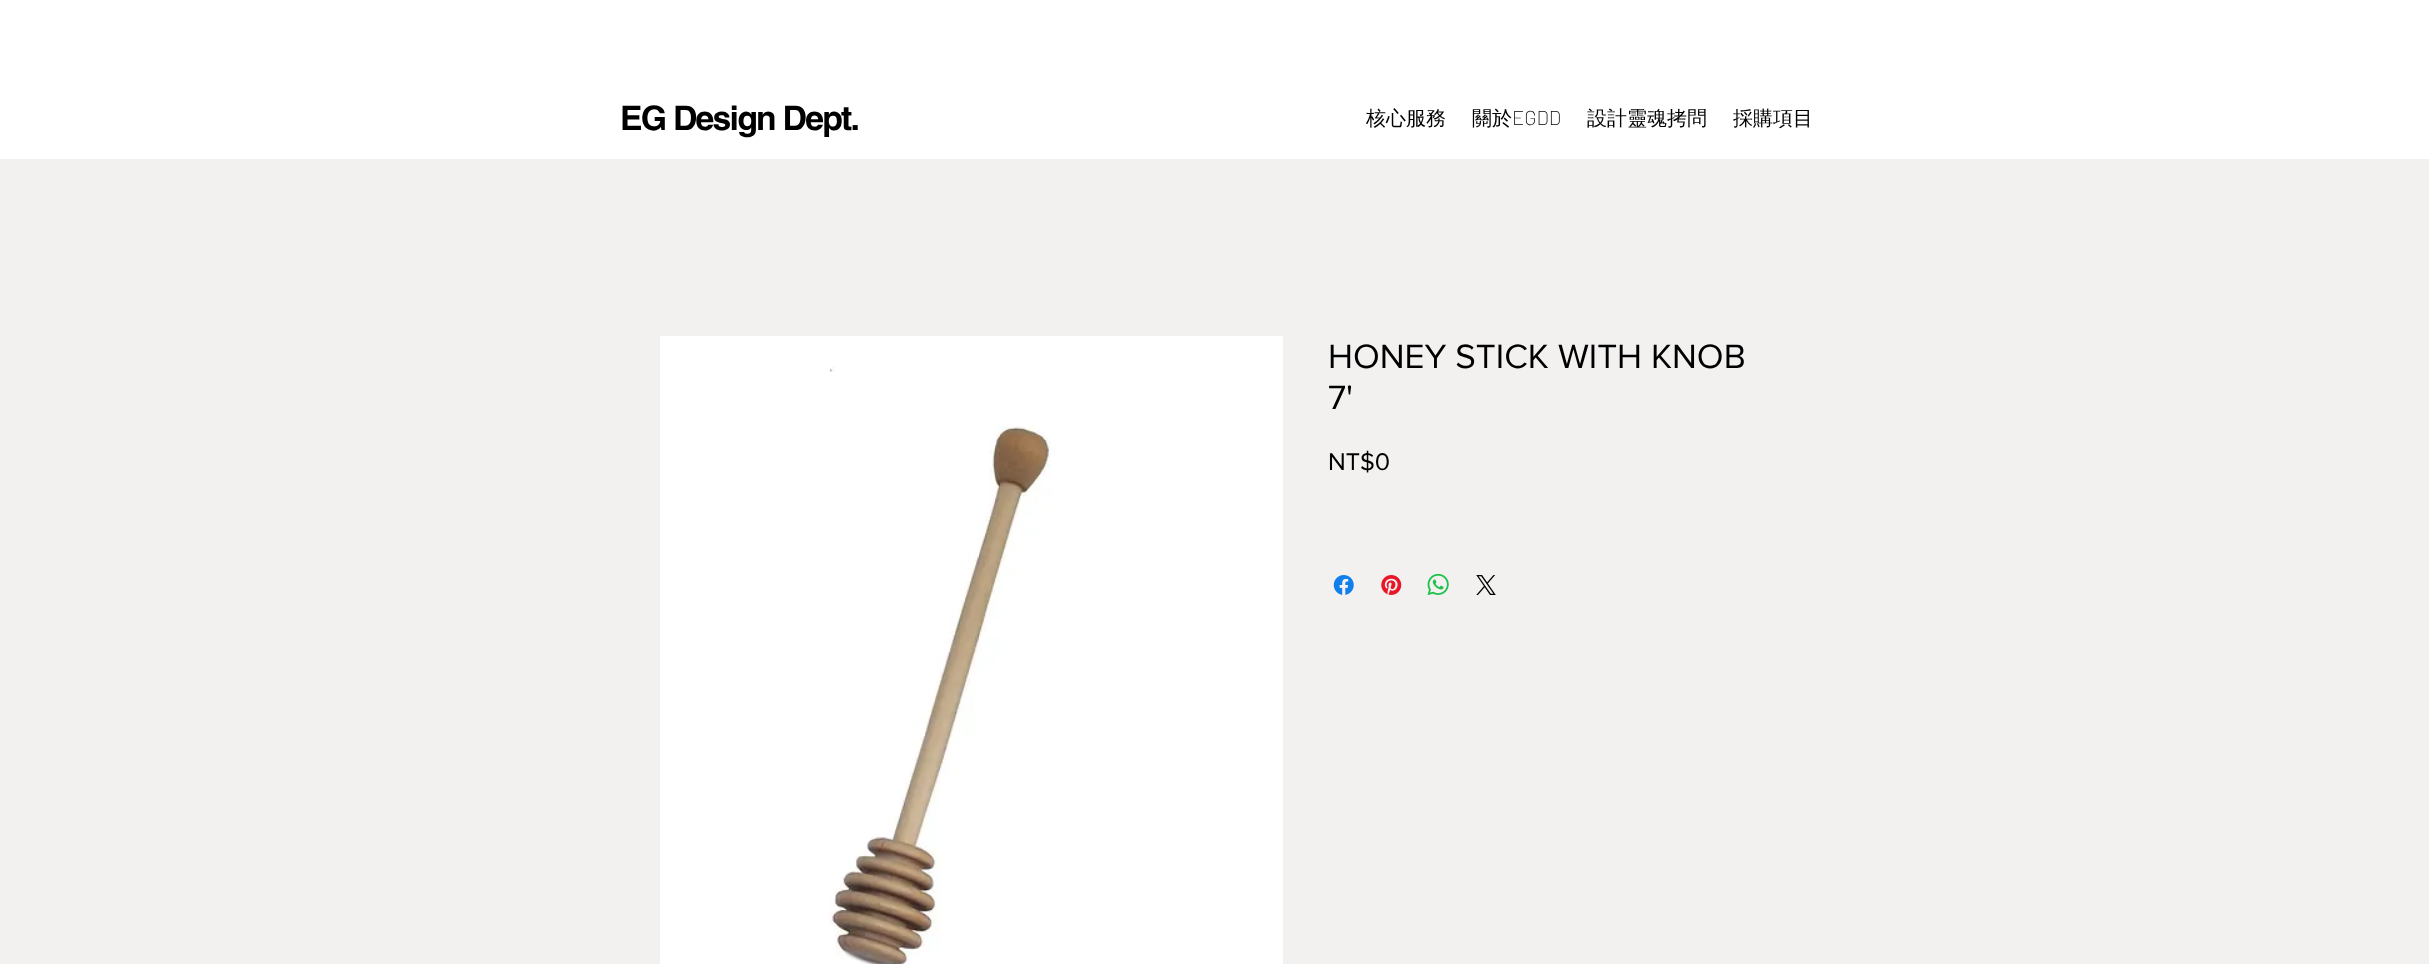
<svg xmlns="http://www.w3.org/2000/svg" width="2429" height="964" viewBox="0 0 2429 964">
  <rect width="100%" height="100%" fill="#f2f1f0"/>
  <rect x="0" y="0" width="2429" height="159" fill="#ffffff"/>
  <text x="620" y="130" font-family="helvetica" font-size="33.75" font-weight="bold" letter-spacing="-1.75" fill="#000000">EG Design Dept.</text>
  <text x="1366" y="125" font-family="WenQuanYi Zen Hei" font-size="20" font-weight="500" fill="#000000">核心服務</text>
  <text x="1472" y="125" font-family="WenQuanYi Zen Hei" font-size="20" font-weight="500" fill="#000000">關於</text>
  <text x="1512" y="125" font-family="Barlow" font-size="20" font-weight="200" fill="#000000">EGDD</text>
  <text x="1587" y="125" font-family="WenQuanYi Zen Hei" font-size="20" font-weight="500" fill="#000000">設計靈魂拷問</text>
  <text x="1733" y="125" font-family="WenQuanYi Zen Hei" font-size="20" font-weight="500" fill="#000000">採購項目</text>
  <image x="660" y="336" width="623" height="628" href="img1.png"/>
  <text x="1328" y="368" font-family="'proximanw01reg'" font-size="35" fill="#000000">HONEY STICK WITH KNOB</text>
  <text x="1328" y="409" font-family="'proximanw01reg'" font-size="35" fill="#000000">7'</text>
  <text x="1328" y="470" font-family="'proximanw01reg'" font-size="25" fill="#000000">NT$0</text>
  <image x="1333" y="575" width="21" height="20" href="img2.png"/>
  <image x="1381" y="575" width="21" height="20" href="img3.png"/>
  <image x="1427" y="573" width="22" height="23" href="img4.png"/>
  <image x="1476" y="575" width="20" height="20" href="img5.png"/>
</svg>
